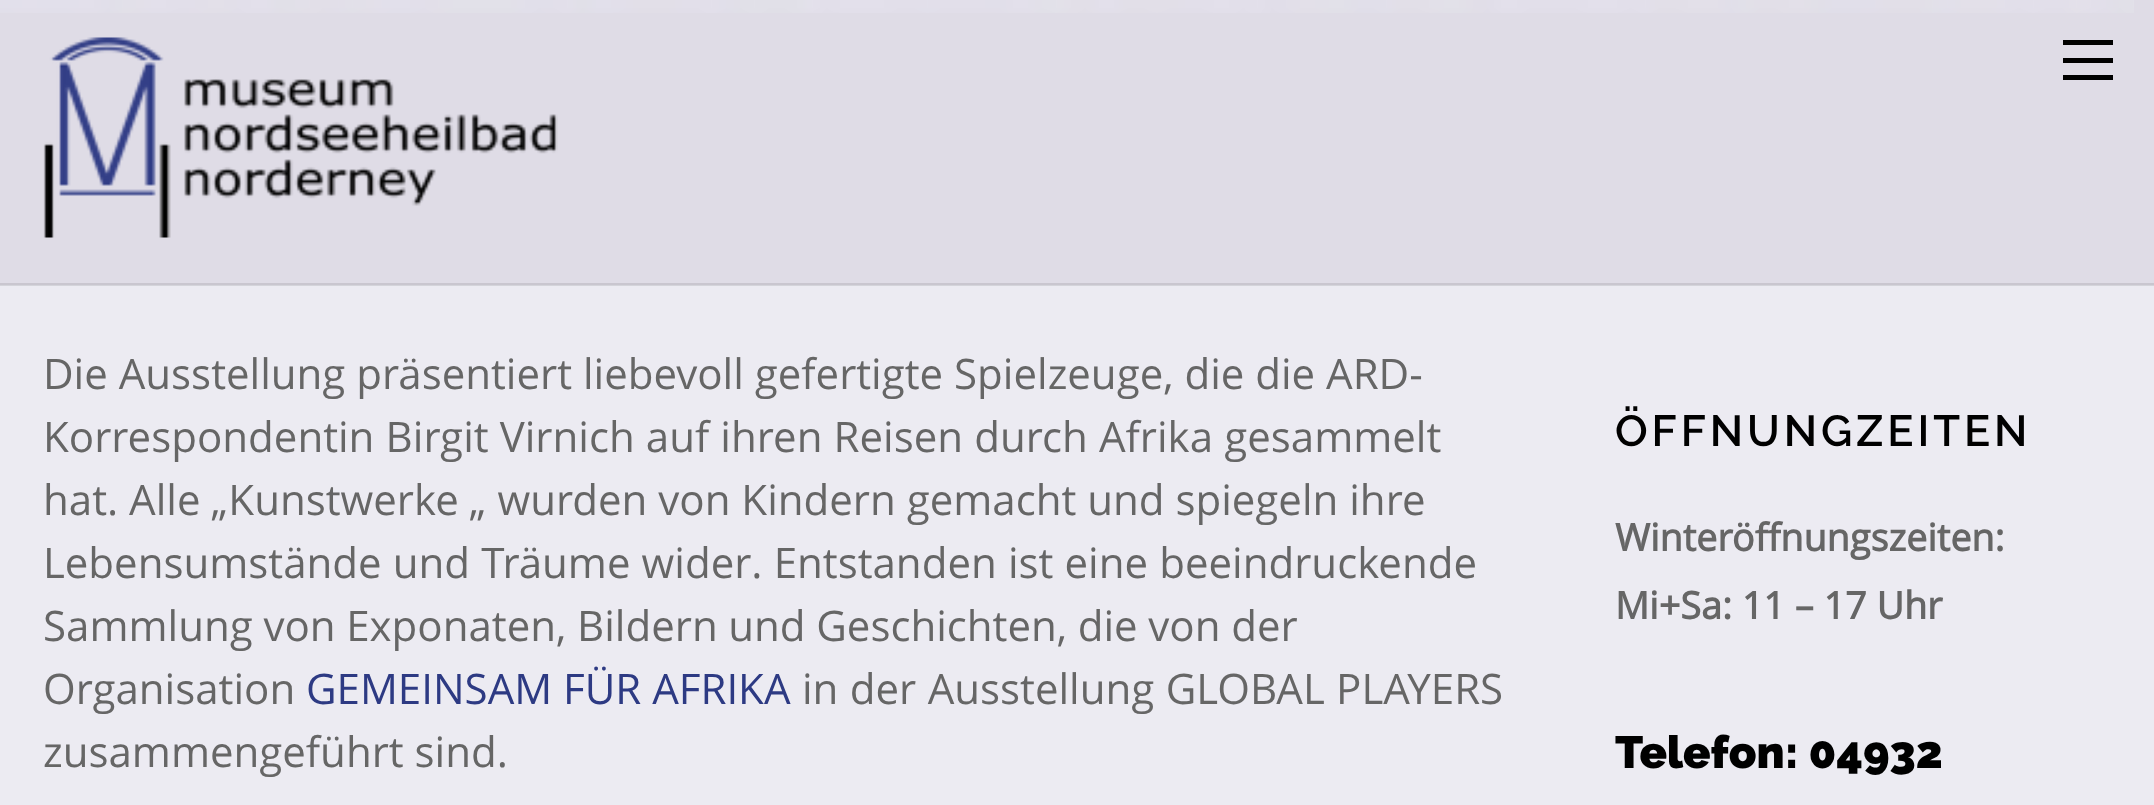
<svg xmlns="http://www.w3.org/2000/svg" width="2154" height="805" viewBox="0 0 2154 805">
  <rect width="100%" height="100%" fill="#ecebf2"/>
  <rect x="0" y="285" width="2154" height="1" fill="#d4d4da"/>
  <rect x="0" y="0" width="2154" height="283" fill="#dfdce6"/>
  <rect x="0" y="283" width="2154" height="2" fill="#c9c6cf"/>
  <image x="0" y="0" width="2134" height="13" href="img1.png"/>
  <image x="43" y="37" width="515" height="201" href="img2.png"/>
  <rect x="2063" y="75" width="50" height="5" fill="#000000"/>
  <rect x="2063" y="40" width="50" height="5" fill="#000000"/>
  <rect x="2063" y="58" width="50" height="5" fill="#000000"/>
  <text x="43" y="389" font-family="Open Sans" font-size="42" fill="#666666">Die Ausstellung präsentiert liebevoll gefertigte Spielzeuge, die die ARD-</text>
  <text x="43" y="452" word-spacing="0.25" font-family="Open Sans" font-size="42" fill="#666666">Korrespondentin Birgit Virnich auf ihren Reisen durch Afrika gesammelt</text>
  <text x="43" y="515" font-family="Open Sans" font-size="42" fill="#666666">hat. Alle „Kunstwerke „ wurden von Kindern gemacht und spiegeln ihre</text>
  <text x="43" y="578" word-spacing="0.25" font-family="Open Sans" font-size="42" fill="#666666">Lebensumstände und Träume wider. Entstanden ist eine beeindruckende</text>
  <text x="43" y="641" word-spacing="-0.25" font-family="Open Sans" font-size="42" fill="#666666">Sammlung von Exponaten, Bildern und Geschichten, die von der</text>
  <text x="43" y="704" font-family="Open Sans" font-size="42" fill="#666666">Organisation</text>
  <text x="306" y="704" font-family="Open Sans" font-size="42" fill="#2d3a83">GEMEINSAM FÜR AFRIKA</text>
  <text x="802" y="704" word-spacing="0.5" font-family="Open Sans" font-size="42" fill="#666666">in der Ausstellung GLOBAL PLAYERS</text>
  <text x="43" y="767" font-family="Open Sans" font-size="42" fill="#666666">zusammengeführt sind.</text>
  <text x="1615" y="446" font-family="Raleway" font-size="43.5" font-weight="600" letter-spacing="3.9" fill="#000000">ÖFFNUNGZEITEN</text>
  <text x="1615" y="551" font-family="Open Sans" font-size="37.75" font-weight="bold" fill="#666666">Winteröffnungszeiten:</text>
  <text x="1615" y="619" font-family="Open Sans" font-size="37.75" font-weight="bold" fill="#666666">Mi+Sa: 11 – 17 Uhr</text>
  <text x="1615" y="768" font-family="Raleway" font-size="45.25" font-weight="900" fill="#000000">Telefon: 04932</text>
</svg>
